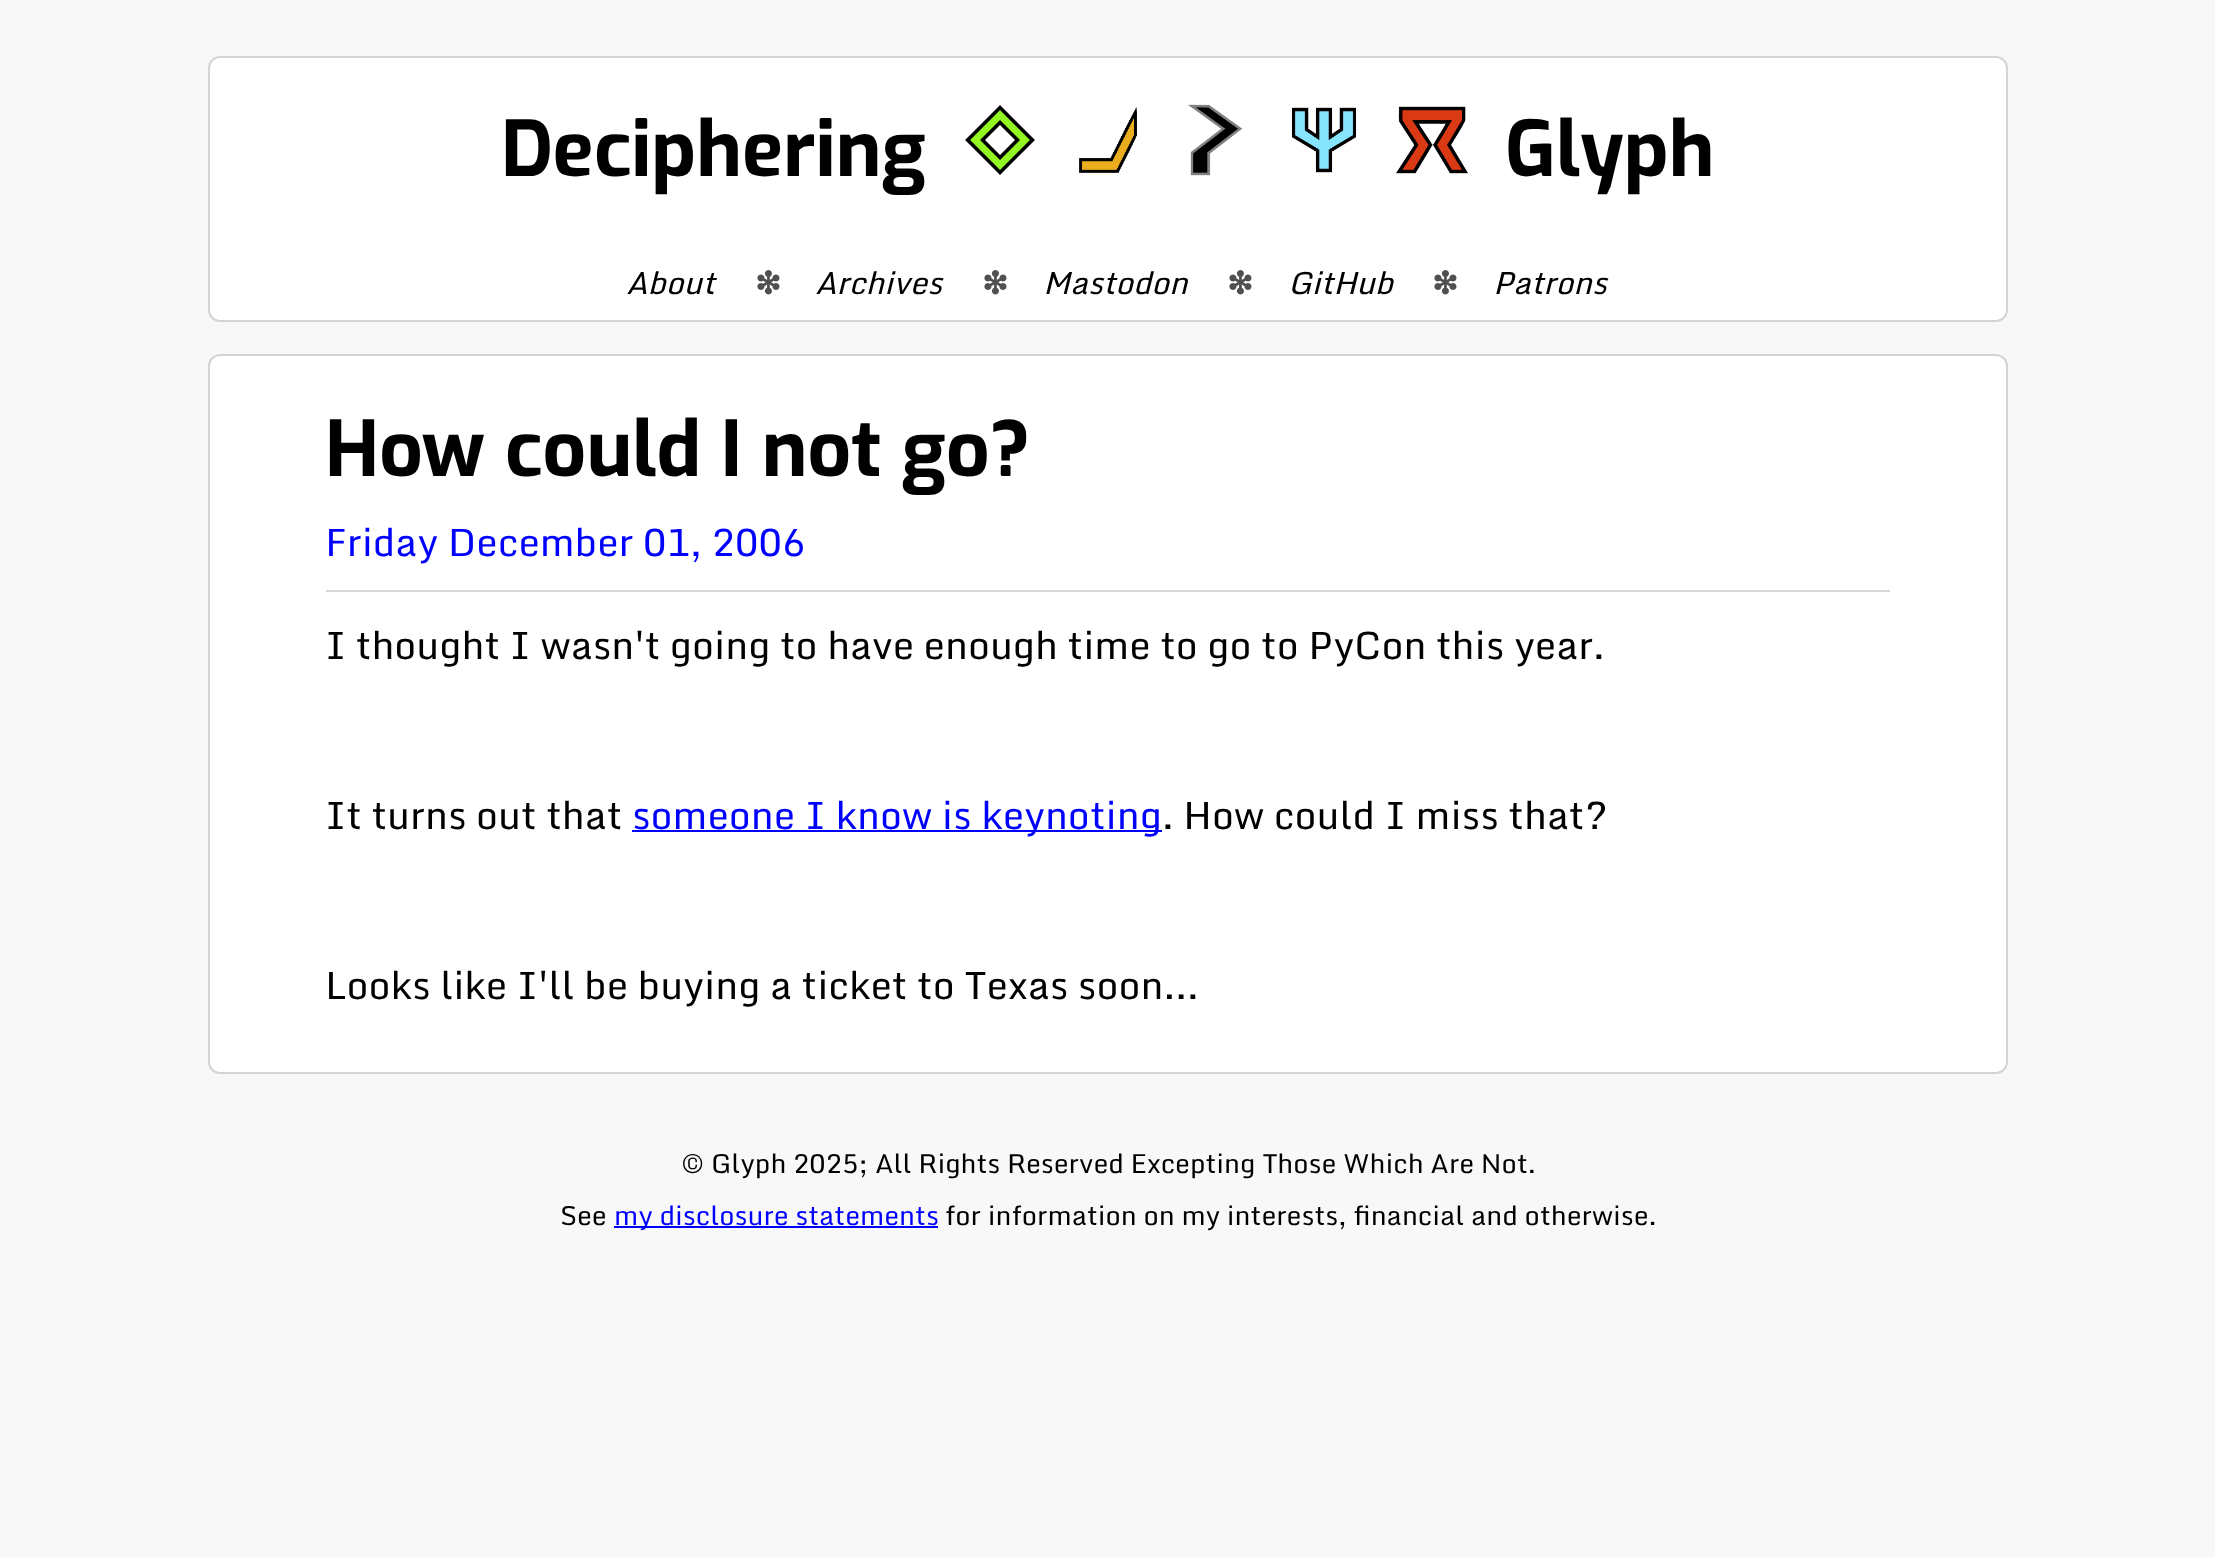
<svg xmlns="http://www.w3.org/2000/svg" width="2215" height="1557" viewBox="0 0 2215 1557">
  <rect width="100%" height="100%" fill="#f8f8f8"/>
  <rect x="209" y="57" width="1798" height="264" rx="11" fill="#ffffff" stroke="#d6d3d7" stroke-width="2"/>
  <text x="501" y="176" font-family="Exo" font-size="76.75" font-weight="bold" fill="#000000">Deciphering</text>
  <image x="965" y="105" width="70" height="70" href="img1.png"/>
  <image x="1079" y="107" width="59" height="66" href="img2.png"/>
  <image x="1188" y="104" width="55" height="72" href="img3.png"/>
  <image x="1291" y="107" width="66" height="66" href="img4.png"/>
  <image x="1396" y="106" width="72" height="68" href="img5.png"/>
  <text x="1505" y="176" font-family="Exo" font-size="76.75" font-weight="bold" fill="#000000">Glyph</text>
  <text x="626" y="294" font-family="Monda" font-size="31" font-style="italic" fill="#000000">About</text>
  <text x="755" y="294" font-family="DejaVu Sans" font-size="31" font-weight="bold" fill="#505050">❇</text>
  <text x="815" y="294" font-family="Monda" font-size="31" font-style="italic" fill="#000000">Archives</text>
  <text x="982" y="294" font-family="DejaVu Sans" font-size="31" font-weight="bold" fill="#505050">❇</text>
  <text x="1043" y="294" font-family="Monda" font-size="31" font-style="italic" fill="#000000">Mastodon</text>
  <text x="1227" y="294" font-family="DejaVu Sans" font-size="31" font-weight="bold" fill="#505050">❇</text>
  <text x="1288" y="294" font-family="Monda" font-size="31" font-style="italic" fill="#000000">GitHub</text>
  <text x="1432" y="294" font-family="DejaVu Sans" font-size="31" font-weight="bold" fill="#505050">❇</text>
  <text x="1493" y="294" font-family="Monda" font-size="31" font-style="italic" fill="#000000">Patrons</text>
  <rect x="209" y="355" width="1798" height="718" rx="11" fill="#ffffff" stroke="#d6d3d7" stroke-width="2"/>
  <rect x="326" y="590" width="1564" height="2" fill="#d8d8d8"/>
  <text x="325" y="476" font-family="Exo" font-size="76.75" font-weight="bold" fill="#000000">How could I not go?</text>
  <text x="325" y="556" font-family="Monda" font-size="38.4" fill="#0000ff">Friday December 01, 2006</text>
  <text x="325" y="659" font-family="Monda" font-size="38.4" fill="#000000">I thought I wasn't going to have enough time to go to PyCon this year.</text>
  <text x="325" y="829" font-family="Monda" font-size="38.4" fill="#000000">It turns out that</text>
  <rect x="632" y="830" width="530" height="2" fill="#0000ff"/>
  <text x="632" y="829" font-family="Monda" font-size="38.4" fill="#0000ff">someone I know is keynoting</text>
  <text x="1162" y="829" font-family="Monda" font-size="38.4" fill="#000000">. How could I miss that?</text>
  <text x="325" y="999" font-family="Monda" font-size="38.4" fill="#000000">Looks like I'll be buying a ticket to Texas soon...</text>
  <text x="681" y="1173" font-family="Monda" font-size="26.7" fill="#000000">© Glyph 2025; All Rights Reserved Excepting Those Which Are Not.</text>
  <text x="560" y="1225" font-family="Monda" font-size="26.7" fill="#000000">See</text>
  <rect x="614" y="1226" width="324" height="2" fill="#0000ff"/>
  <text x="614" y="1225" font-family="Monda" font-size="26.7" fill="#0000ff">my disclosure statements</text>
  <text x="945" y="1225" font-family="Monda" font-size="26.7" fill="#000000">for information on my interests, financial and otherwise.</text>
</svg>
